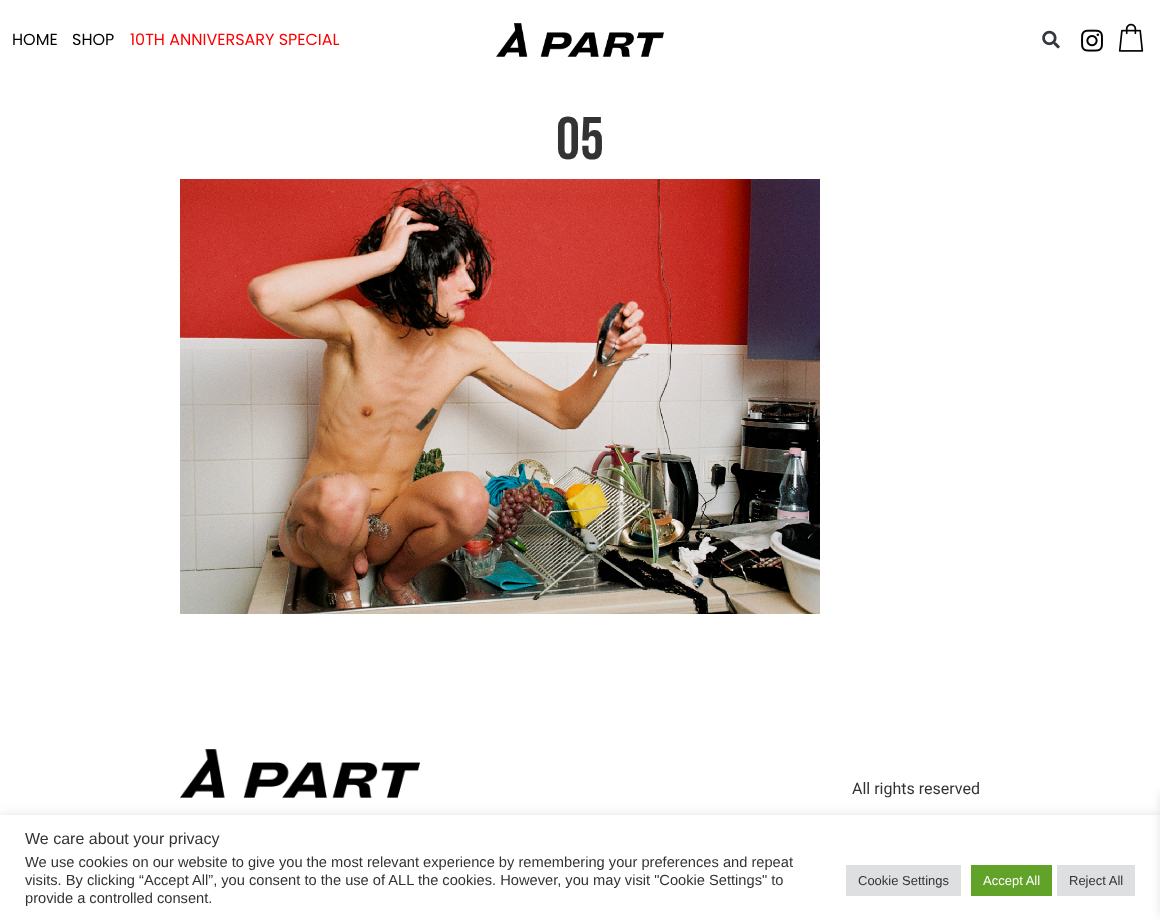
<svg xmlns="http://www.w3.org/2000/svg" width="1160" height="921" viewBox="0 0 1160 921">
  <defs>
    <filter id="blur1" x="-50%" y="-200%" width="200%" height="500%"><feGaussianBlur stdDeviation="5"/></filter>
  </defs>
  <rect width="100%" height="100%" fill="#ffffff"/>
  <text x="12" y="45" font-family="Poppins" font-size="16" fill="#000000">HOME</text>
  <text x="72" y="45" font-family="Poppins" font-size="16" fill="#000000">SHOP</text>
  <text x="130" y="45" font-family="Poppins" font-size="16" fill="#ff0000">10TH ANNIVERSARY SPECIAL</text>
  <image x="496" y="23" width="168" height="34" href="img1.png"/>
  <image x="1042" y="30" width="18" height="19" href="img2.png"/>
  <image x="1081" y="29" width="22" height="23" href="img3.png"/>
  <image x="1118" y="23" width="26" height="29" href="img4.png"/>
  <text x="556" y="159" font-family="Bebas Neue" font-size="60" fill="#333333">05</text>
  <image x="180" y="179" width="640" height="435" href="img5.png"/>
  <image x="180" y="749" width="240" height="49" href="img6.png"/>
  <text x="852" y="794" font-family="Roboto" font-size="16" fill="#333333">All rights reserved</text>
  <rect x="0" y="814" width="1160" height="106" fill="#acabab" fill-opacity="0.3" filter="url(#blur1)"/>
  <rect x="0" y="815" width="1160" height="106" fill="#ffffff"/>
  <rect x="1160" y="794" width="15" height="122" fill="#000000" fill-opacity="0.1" filter="url(#blur1)"/>
  <text x="25" y="844" font-family="Liberation Sans" font-size="16" fill="#333333">We care about your privacy</text>
  <text x="25" y="867" font-family="Liberation Sans" font-size="14.67" fill="#333333">We use cookies on our website to give you the most relevant experience by remembering your preferences and repeat</text>
  <text x="25" y="885" font-family="Liberation Sans" font-size="14.67" fill="#333333">visits. By clicking “Accept All”, you consent to the use of ALL the cookies. However, you may visit "Cookie Settings" to</text>
  <text x="25" y="903" font-family="Liberation Sans" font-size="14.67" fill="#333333">provide a controlled consent.</text>
  <rect x="846" y="865" width="115" height="31" fill="#dedfe0"/>
  <text x="858" y="885" font-family="Liberation Sans" font-size="13" fill="#333333">Cookie Settings</text>
  <rect x="971" y="865" width="81" height="31" fill="#61a229"/>
  <text x="983" y="885" font-family="Liberation Sans" font-size="13" fill="#ffffff">Accept All</text>
  <rect x="1057" y="865" width="78" height="31" fill="#dedfe0"/>
  <text x="1069" y="885" font-family="Liberation Sans" font-size="13" fill="#333333">Reject All</text>
</svg>
